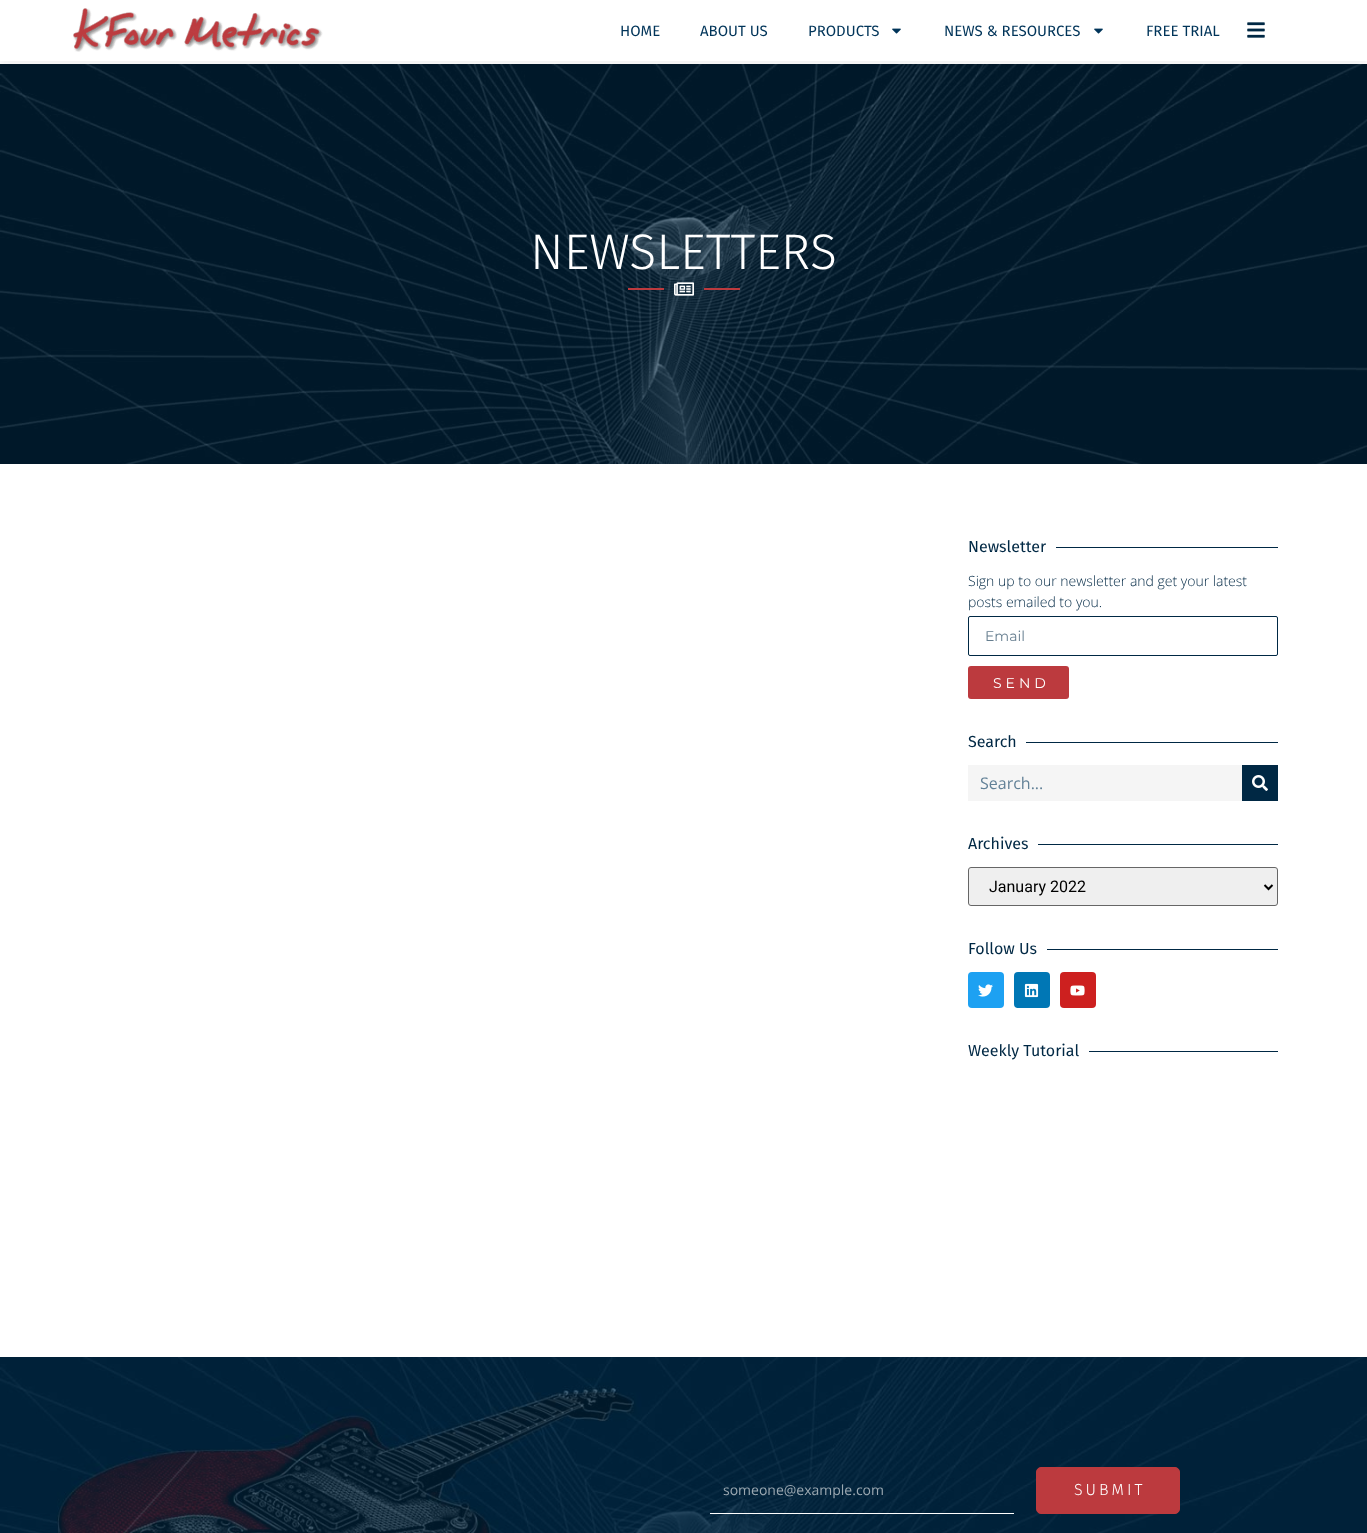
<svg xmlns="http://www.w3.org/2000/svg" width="1367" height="1533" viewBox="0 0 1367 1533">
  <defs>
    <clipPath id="clip1"><rect x="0" y="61" width="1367" height="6"/></clipPath>
    <filter id="blur1" x="-50%" y="-200%" width="200%" height="500%"><feGaussianBlur stdDeviation="5"/></filter>
  </defs>
  <rect width="100%" height="100%" fill="#ffffff"/>
  <image x="0" y="64" width="1367" height="400" href="img4.png"/>
  <g clip-path="url(#clip1)">
    <rect x="0" y="5" width="1367" height="61" fill="#000000" fill-opacity="0.05" filter="url(#blur1)"/>
  </g>
  <image x="73" y="8" width="250" height="44" href="img1.png"/>
  <text x="620" y="36" font-family="Fira Sans" font-size="15" fill="#003459">HOME</text>
  <text x="700" y="36" font-family="Fira Sans" font-size="15" fill="#003459">ABOUT US</text>
  <text x="808" y="36" font-family="Fira Sans" font-size="15" fill="#003459">PRODUCTS</text>
  <image x="892" y="28" width="9" height="6" href="img2.png"/>
  <text x="944" y="36" font-family="Fira Sans" font-size="15" fill="#003459">NEWS &amp; RESOURCES</text>
  <image x="1094" y="28" width="9" height="6" href="img2.png"/>
  <text x="1146" y="36" font-family="Fira Sans" font-size="15" fill="#003459">FREE TRIAL</text>
  <image x="1247" y="22" width="18" height="16" href="img3.png"/>
  <text x="530" y="269" font-family="Fira Sans" font-size="50" font-weight="300" fill="#ffffff">NEWSLETTERS</text>
  <rect x="628" y="288" width="36" height="2" fill="#bc3a3e"/>
  <image x="674" y="282" width="20" height="14" href="img5.png"/>
  <rect x="704" y="288" width="36" height="2" fill="#bc3a3e"/>
  <text x="968" y="552" font-family="Fira Sans" font-size="16" fill="#002844">Newsletter</text>
  <rect x="1056" y="547" width="222" height="1" fill="#002844"/>
  <text x="968" y="586" font-family="Open Sans" font-size="14" font-weight="300" fill="#002844">Sign up to our newsletter and get your latest</text>
  <text x="968" y="607" font-family="Open Sans" font-size="14" font-weight="300" fill="#002844">posts emailed to you.</text>
  <rect x="968.5" y="616.5" width="309" height="39" rx="1.5" fill="none" stroke="#002844"/>
  <text x="985" y="641" font-family="Montserrat" font-size="14" fill="#667e8f">Email</text>
  <rect x="968" y="666" width="101" height="33" rx="3" fill="#bc3a3e"/>
  <text x="993" y="688" font-family="Montserrat" font-size="14" letter-spacing="4" fill="#ffffff">SEND</text>
  <text x="968" y="747" font-family="Fira Sans" font-size="16" fill="#002844">Search</text>
  <rect x="1026" y="742" width="252" height="1" fill="#002844"/>
  <rect x="968" y="765" width="274" height="36" fill="#f5f5f5"/>
  <text x="980" y="789" font-family="Open Sans" font-size="16" fill="#628197">Search...</text>
  <rect x="1242" y="765" width="36" height="36" fill="#002844"/>
  <image x="1252" y="775" width="16" height="16" href="img6.png"/>
  <text x="968" y="849" font-family="Fira Sans" font-size="16" fill="#002844">Archives</text>
  <rect x="1038" y="844" width="240" height="1" fill="#002844"/>
  <rect x="968.5" y="867.5" width="309" height="38" rx="2.5" fill="#efefef" stroke="#666666"/>
  <path d="M1264.5 885L1268.5 889L1272.5 885" fill="none" stroke="#000000" stroke-width="2"/>
  <text x="989" y="892" font-family="Roboto" font-size="16" fill="#000000">January 2022</text>
  <text x="968" y="954" font-family="Fira Sans" font-size="16" fill="#002844">Follow Us</text>
  <rect x="1047" y="949" width="231" height="1" fill="#002844"/>
  <rect x="968" y="972" width="36" height="36" rx="4" fill="#1da1f2"/>
  <image x="978" y="984" width="15" height="13" href="img7.png"/>
  <rect x="1014" y="972" width="36" height="36" rx="4" fill="#0077b5"/>
  <image x="1024" y="983" width="15" height="15" href="img8.png"/>
  <rect x="1060" y="972" width="36" height="36" rx="4" fill="#cd201f"/>
  <image x="1070" y="985" width="15" height="11" href="img9.png"/>
  <text x="968" y="1056" font-family="Fira Sans" font-size="16" fill="#002844">Weekly Tutorial</text>
  <rect x="1089" y="1051" width="189" height="1" fill="#002844"/>
  <image x="0" y="1357" width="1367" height="176" href="img10.png"/>
  <rect x="710" y="1513" width="304" height="1" fill="#ffffff"/>
  <text x="723" y="1495" font-family="Open Sans" font-size="14" fill="#9ba8b1">someone@example.com</text>
  <rect x="1036.5" y="1467.5" width="143" height="46" rx="4.5" fill="#bc3a3e" stroke="#bc3a3e"/>
  <text x="1074" y="1495" font-family="Fira Sans" font-size="16" font-weight="300" letter-spacing="3" fill="#ffffff">SUBMIT</text>
</svg>
